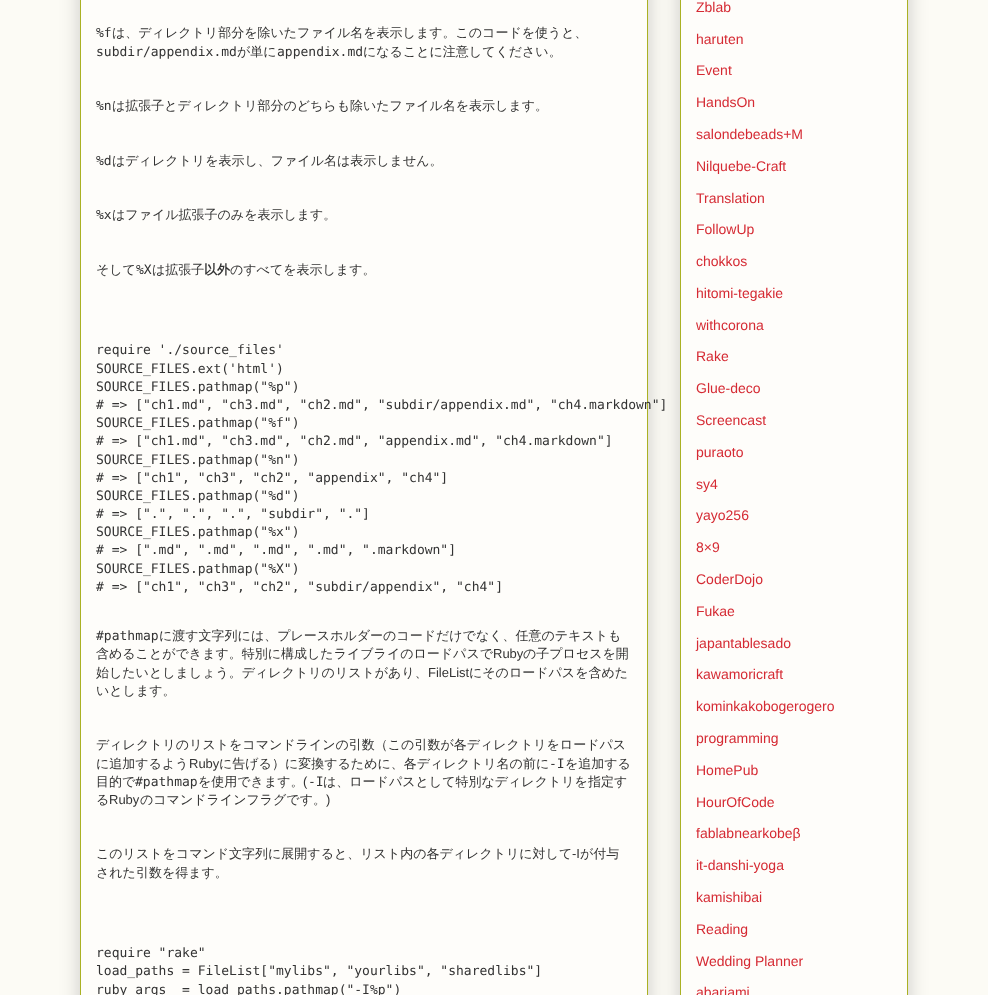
<svg xmlns="http://www.w3.org/2000/svg" width="988" height="995" viewBox="0 0 988 995">
  <defs>
    <filter id="blur1" x="-50%" y="-200%" width="200%" height="500%"><feGaussianBlur stdDeviation="10"/></filter>
  </defs>
  <rect width="100%" height="100%" fill="#fcfbf5"/>
  <rect x="80" y="-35" width="568" height="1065" rx="5" fill="#000000" fill-opacity="0.2" filter="url(#blur1)"/>
  <rect x="80.5" y="-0.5" width="567" height="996" fill="#fefdfa" stroke="#aab123"/>
  <text x="96" y="37" font-family="DejaVu Sans Mono" font-size="13" fill="#333333">%f</text>
  <text x="112" y="37" font-family="WenQuanYi Zen Hei" font-size="13" font-weight="500" fill="#333333">は、ディレクトリ部分を除いたファイル名を表示します。このコードを使うと、</text>
  <text x="96" y="56" font-family="DejaVu Sans Mono" font-size="13" fill="#333333">subdir/appendix.md</text>
  <text x="237" y="56" font-family="WenQuanYi Zen Hei" font-size="13" font-weight="500" fill="#333333">が単に</text>
  <text x="277" y="56" font-family="DejaVu Sans Mono" font-size="13" fill="#333333">appendix.md</text>
  <text x="363" y="56" font-family="WenQuanYi Zen Hei" font-size="13" font-weight="500" fill="#333333">になることに注意してください。</text>
  <text x="96" y="110" font-family="DejaVu Sans Mono" font-size="13" fill="#333333">%n</text>
  <text x="112" y="110" font-family="WenQuanYi Zen Hei" font-size="13" font-weight="500" fill="#333333">は拡張子とディレクトリ部分のどちらも除いたファイル名を表示します。</text>
  <text x="96" y="165" font-family="DejaVu Sans Mono" font-size="13" fill="#333333">%d</text>
  <text x="112" y="165" font-family="WenQuanYi Zen Hei" font-size="13" font-weight="500" fill="#333333">はディレクトリを表示し、ファイル名は表示しません。</text>
  <text x="96" y="219" font-family="DejaVu Sans Mono" font-size="13" fill="#333333">%x</text>
  <text x="112" y="219" font-family="WenQuanYi Zen Hei" font-size="13" font-weight="500" fill="#333333">はファイル拡張子のみを表示します。</text>
  <text x="96" y="274" font-family="WenQuanYi Zen Hei" font-size="13" font-weight="500" fill="#333333">そして</text>
  <text x="136" y="274" font-family="DejaVu Sans Mono" font-size="13" fill="#333333">%X</text>
  <text x="152" y="274" font-family="WenQuanYi Zen Hei" font-size="13" font-weight="500" fill="#333333">は拡張子</text>
  <text x="204" y="274" font-family="WenQuanYi Zen Hei" font-size="13" font-weight="bold" fill="#333333">以外</text>
  <text x="230" y="274" font-family="WenQuanYi Zen Hei" font-size="13" font-weight="500" fill="#333333">のすべてを表示します。</text>
  <text x="96" y="354" font-family="DejaVu Sans Mono" font-size="13" fill="#333333">require './source_files'</text>
  <text x="96" y="373" font-family="DejaVu Sans Mono" font-size="13" fill="#333333">SOURCE_FILES.ext('html')</text>
  <text x="96" y="391" font-family="DejaVu Sans Mono" font-size="13" fill="#333333">SOURCE_FILES.pathmap("%p")</text>
  <text x="96" y="409" font-family="DejaVu Sans Mono" font-size="13" fill="#333333"># =&gt; ["ch1.md", "ch3.md", "ch2.md", "subdir/appendix.md", "ch4.markdown"]</text>
  <text x="96" y="427" font-family="DejaVu Sans Mono" font-size="13" fill="#333333">SOURCE_FILES.pathmap("%f")</text>
  <text x="96" y="445" font-family="DejaVu Sans Mono" font-size="13" fill="#333333"># =&gt; ["ch1.md", "ch3.md", "ch2.md", "appendix.md", "ch4.markdown"]</text>
  <text x="96" y="464" font-family="DejaVu Sans Mono" font-size="13" fill="#333333">SOURCE_FILES.pathmap("%n")</text>
  <text x="96" y="482" font-family="DejaVu Sans Mono" font-size="13" fill="#333333"># =&gt; ["ch1", "ch3", "ch2", "appendix", "ch4"]</text>
  <text x="96" y="500" font-family="DejaVu Sans Mono" font-size="13" fill="#333333">SOURCE_FILES.pathmap("%d")</text>
  <text x="96" y="518" font-family="DejaVu Sans Mono" font-size="13" fill="#333333"># =&gt; [".", ".", ".", "subdir", "."]</text>
  <text x="96" y="536" font-family="DejaVu Sans Mono" font-size="13" fill="#333333">SOURCE_FILES.pathmap("%x")</text>
  <text x="96" y="554" font-family="DejaVu Sans Mono" font-size="13" fill="#333333"># =&gt; [".md", ".md", ".md", ".md", ".markdown"]</text>
  <text x="96" y="573" font-family="DejaVu Sans Mono" font-size="13" fill="#333333">SOURCE_FILES.pathmap("%X")</text>
  <text x="96" y="591" font-family="DejaVu Sans Mono" font-size="13" fill="#333333"># =&gt; ["ch1", "ch3", "ch2", "subdir/appendix", "ch4"]</text>
  <text x="96" y="640" font-family="DejaVu Sans Mono" font-size="13" fill="#333333">#pathmap</text>
  <text x="159" y="640" font-family="WenQuanYi Zen Hei" font-size="13" font-weight="500" fill="#333333">に渡す文字列には、プレースホルダーのコードだけでなく、任意のテキストも</text>
  <text x="96" y="658" font-family="WenQuanYi Zen Hei" font-size="13" font-weight="500" fill="#333333">含めることができます。特別に構成したライブライのロードパスで</text>
  <text x="493" y="658" font-family="Liberation Sans" font-size="13" fill="#333333">Ruby</text>
  <text x="523" y="658" font-family="WenQuanYi Zen Hei" font-size="13" font-weight="500" fill="#333333">の子プロセスを開</text>
  <text x="96" y="677" font-family="WenQuanYi Zen Hei" font-size="13" font-weight="500" fill="#333333">始したいとしましょう。ディレクトリのリストがあり、</text>
  <text x="428" y="677" font-family="Liberation Sans" font-size="13" fill="#333333">FileList</text>
  <text x="469" y="677" font-family="WenQuanYi Zen Hei" font-size="13" font-weight="500" fill="#333333">にそのロードパスを含めた</text>
  <text x="96" y="695" font-family="WenQuanYi Zen Hei" font-size="13" font-weight="500" fill="#333333">いとします。</text>
  <text x="96" y="749" font-family="WenQuanYi Zen Hei" font-size="13" font-weight="500" fill="#333333">ディレクトリのリストをコマンドラインの引数（この引数が各ディレクトリをロードパス</text>
  <text x="96" y="768" font-family="WenQuanYi Zen Hei" font-size="13" font-weight="500" fill="#333333">に追加するよう</text>
  <text x="189" y="768" font-family="Liberation Sans" font-size="13" fill="#333333">Ruby</text>
  <text x="219" y="768" font-family="WenQuanYi Zen Hei" font-size="13" font-weight="500" fill="#333333">に告げる）に変換するために、各ディレクトリ名の前に</text>
  <text x="549" y="768" font-family="DejaVu Sans Mono" font-size="13" fill="#333333">-I</text>
  <text x="565" y="768" font-family="WenQuanYi Zen Hei" font-size="13" font-weight="500" fill="#333333">を追加する</text>
  <text x="96" y="786" font-family="WenQuanYi Zen Hei" font-size="13" font-weight="500" fill="#333333">目的で</text>
  <text x="135" y="786" font-family="DejaVu Sans Mono" font-size="13" fill="#333333">#pathmap</text>
  <text x="198" y="786" font-family="WenQuanYi Zen Hei" font-size="13" font-weight="500" fill="#333333">を使用できます。</text>
  <text x="303" y="786" font-family="Liberation Sans" font-size="13" fill="#333333">(</text>
  <text x="308" y="786" font-family="DejaVu Sans Mono" font-size="13" fill="#333333">-I</text>
  <text x="323" y="786" font-family="WenQuanYi Zen Hei" font-size="13" font-weight="500" fill="#333333">は、ロードパスとして特別なディレクトリを指定す</text>
  <text x="96" y="804" font-family="WenQuanYi Zen Hei" font-size="13" font-weight="500" fill="#333333">る</text>
  <text x="109" y="804" font-family="Liberation Sans" font-size="13" fill="#333333">Ruby</text>
  <text x="140" y="804" font-family="WenQuanYi Zen Hei" font-size="13" font-weight="500" fill="#333333">のコマンドラインフラグです。</text>
  <text x="326" y="804" font-family="Liberation Sans" font-size="13" fill="#333333">)</text>
  <text x="96" y="858" font-family="WenQuanYi Zen Hei" font-size="13" font-weight="500" fill="#333333">このリストをコマンド文字列に展開すると、リスト内の各ディレクトリに対して</text>
  <text x="572" y="858" font-family="Liberation Sans" font-size="13" fill="#333333">-I</text>
  <text x="580" y="858" font-family="WenQuanYi Zen Hei" font-size="13" font-weight="500" fill="#333333">が付与</text>
  <text x="96" y="877" font-family="WenQuanYi Zen Hei" font-size="13" font-weight="500" fill="#333333">された引数を得ます。</text>
  <text x="96" y="957" font-family="DejaVu Sans Mono" font-size="13" fill="#333333">require "rake"</text>
  <text x="96" y="975" font-family="DejaVu Sans Mono" font-size="13" fill="#333333">load_paths = FileList["mylibs", "yourlibs", "sharedlibs"]</text>
  <text x="96" y="994" font-family="DejaVu Sans Mono" font-size="13" fill="#333333" xml:space="preserve">ruby_args  = load_paths.pathmap("-I%p")</text>
  <rect x="680" y="-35" width="228" height="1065" rx="5" fill="#000000" fill-opacity="0.2" filter="url(#blur1)"/>
  <rect x="680.5" y="-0.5" width="227" height="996" fill="#fefdfa" stroke="#aab123"/>
  <text x="696" y="12" font-family="Liberation Sans" font-size="14" fill="#d52a33">Zblab</text>
  <text x="696" y="44" font-family="Liberation Sans" font-size="14" fill="#d52a33">haruten</text>
  <text x="696" y="75" font-family="Liberation Sans" font-size="14" fill="#d52a33">Event</text>
  <text x="696" y="107" font-family="Liberation Sans" font-size="14" fill="#d52a33">HandsOn</text>
  <text x="696" y="139" font-family="Liberation Sans" font-size="14" fill="#d52a33">salondebeads+M</text>
  <text x="696" y="171" font-family="Liberation Sans" font-size="14" fill="#d52a33">Nilquebe-Craft</text>
  <text x="696" y="203" font-family="Liberation Sans" font-size="14" fill="#d52a33">Translation</text>
  <text x="696" y="234" font-family="Liberation Sans" font-size="14" fill="#d52a33">FollowUp</text>
  <text x="696" y="266" font-family="Liberation Sans" font-size="14" fill="#d52a33">chokkos</text>
  <text x="696" y="298" font-family="Liberation Sans" font-size="14" fill="#d52a33">hitomi-tegakie</text>
  <text x="696" y="330" font-family="Liberation Sans" font-size="14" fill="#d52a33">withcorona</text>
  <text x="696" y="361" font-family="Liberation Sans" font-size="14" fill="#d52a33">Rake</text>
  <text x="696" y="393" font-family="Liberation Sans" font-size="14" fill="#d52a33">Glue-deco</text>
  <text x="696" y="425" font-family="Liberation Sans" font-size="14" fill="#d52a33">Screencast</text>
  <text x="696" y="457" font-family="Liberation Sans" font-size="14" fill="#d52a33">puraoto</text>
  <text x="696" y="489" font-family="Liberation Sans" font-size="14" fill="#d52a33">sy4</text>
  <text x="696" y="520" font-family="Liberation Sans" font-size="14" fill="#d52a33">yayo256</text>
  <text x="696" y="552" font-family="Liberation Sans" font-size="14" fill="#d52a33">8×9</text>
  <text x="696" y="584" font-family="Liberation Sans" font-size="14" fill="#d52a33">CoderDojo</text>
  <text x="696" y="616" font-family="Liberation Sans" font-size="14" fill="#d52a33">Fukae</text>
  <text x="696" y="648" font-family="Liberation Sans" font-size="14" fill="#d52a33">japantablesado</text>
  <text x="696" y="679" font-family="Liberation Sans" font-size="14" fill="#d52a33">kawamoricraft</text>
  <text x="696" y="711" font-family="Liberation Sans" font-size="14" fill="#d52a33">kominkakobogerogero</text>
  <text x="696" y="743" font-family="Liberation Sans" font-size="14" fill="#d52a33">programming</text>
  <text x="696" y="775" font-family="Liberation Sans" font-size="14" fill="#d52a33">HomePub</text>
  <text x="696" y="807" font-family="Liberation Sans" font-size="14" fill="#d52a33">HourOfCode</text>
  <text x="696" y="838" font-family="Liberation Sans" font-size="14" fill="#d52a33">fablabnearkobeβ</text>
  <text x="696" y="870" font-family="Liberation Sans" font-size="14" fill="#d52a33">it-danshi-yoga</text>
  <text x="696" y="902" font-family="Liberation Sans" font-size="14" fill="#d52a33">kamishibai</text>
  <text x="696" y="934" font-family="Liberation Sans" font-size="14" fill="#d52a33">Reading</text>
  <text x="696" y="966" font-family="Liberation Sans" font-size="14" fill="#d52a33">Wedding Planner</text>
  <text x="696" y="997" font-family="Liberation Sans" font-size="14" fill="#d52a33">abariami</text>
</svg>
